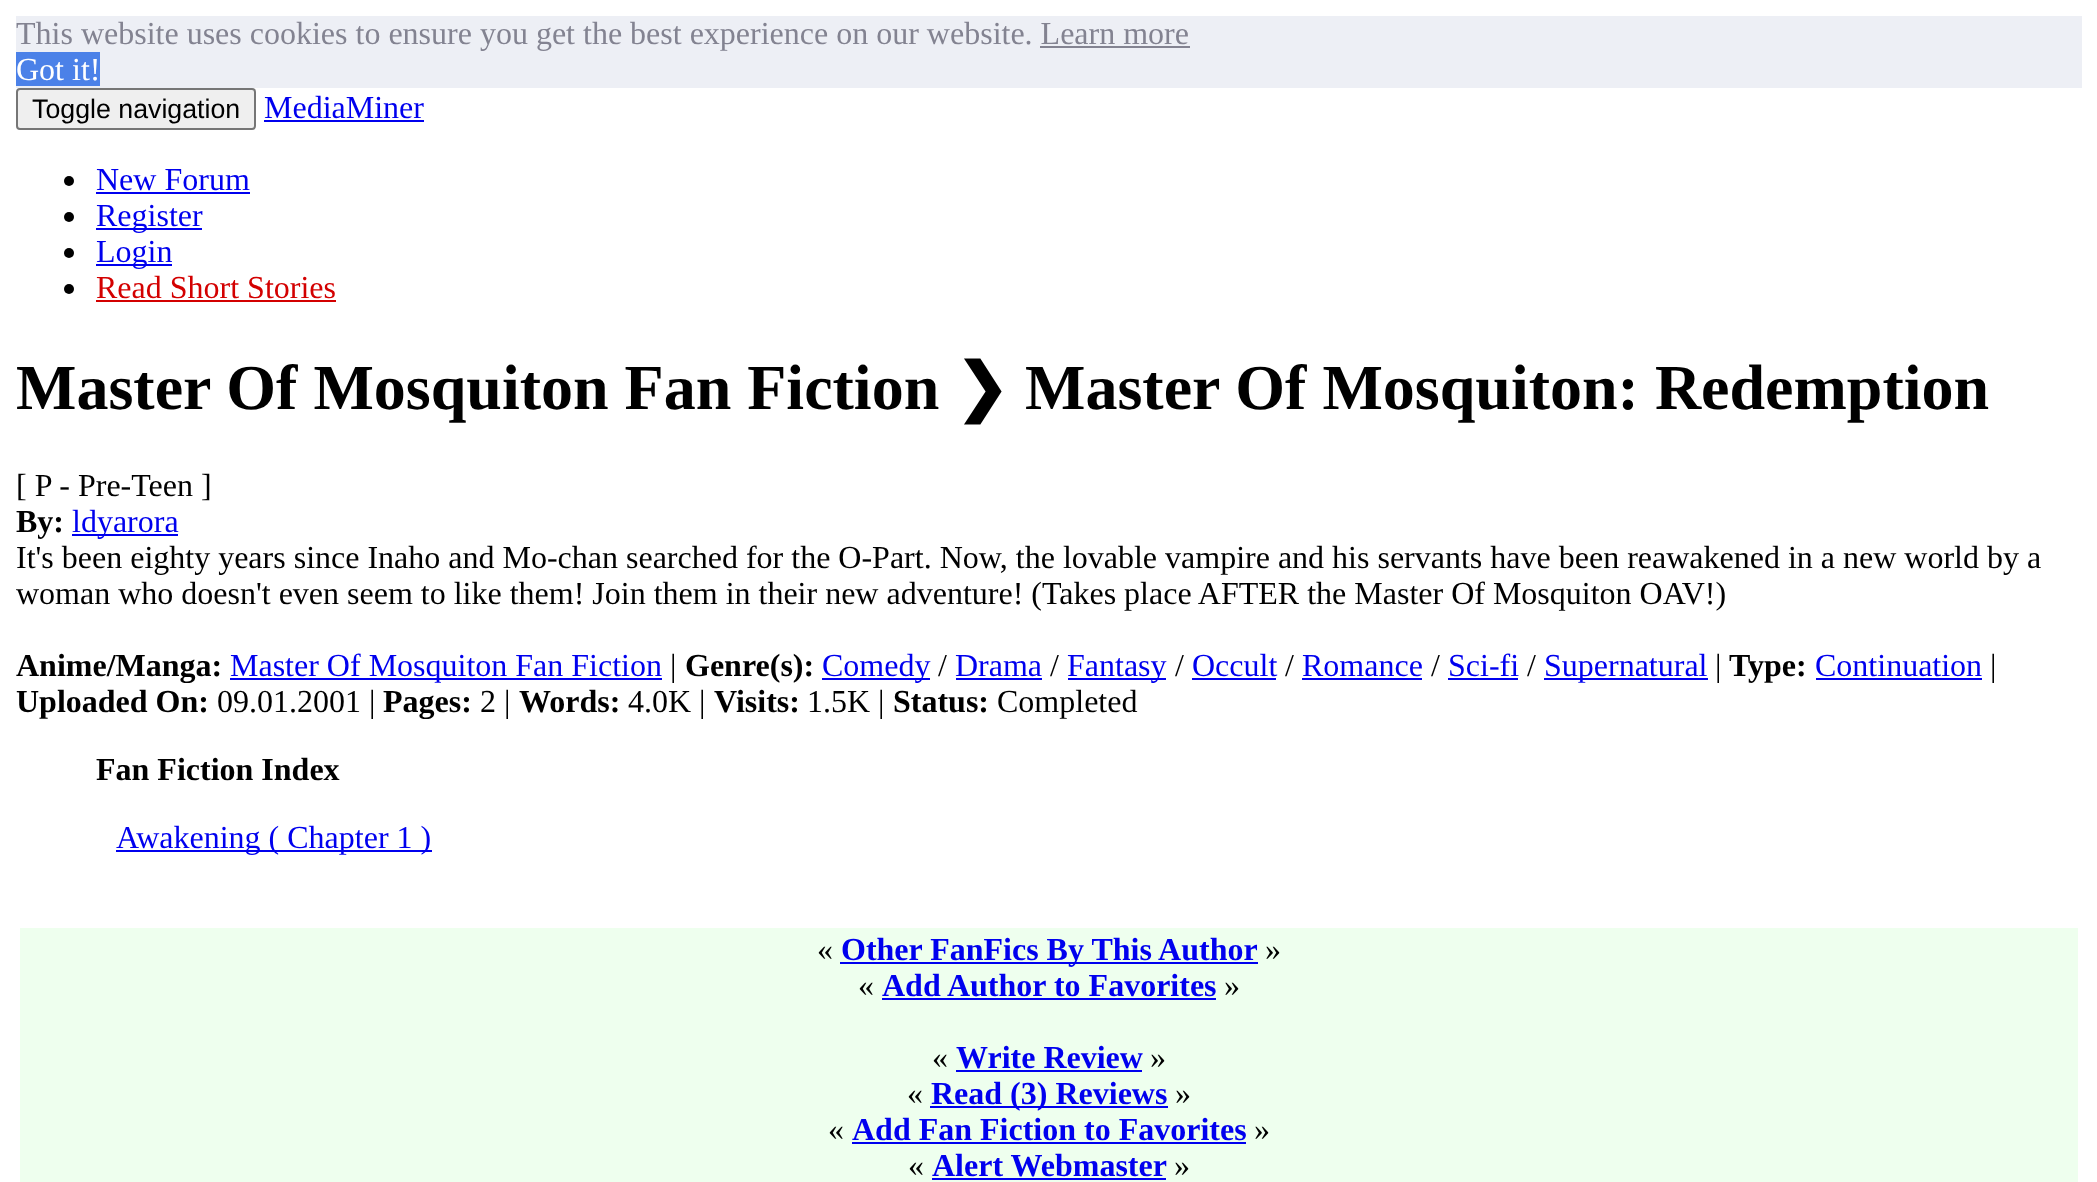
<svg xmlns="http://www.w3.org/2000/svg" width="2097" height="1182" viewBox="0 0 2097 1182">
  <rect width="100%" height="100%" fill="#ffffff"/>
  <rect x="16" y="16" width="2066" height="72" fill="#edeff5"/>
  <text x="16" y="44" font-family="Liberation Serif" font-size="32" fill="#838391">This website uses cookies to ensure you get the best experience on our website. Learn more</text>
  <rect x="1040" y="46" width="150" height="2" fill="#838391"/>
  <rect x="16" y="52" width="84" height="34" fill="#4b81e8"/>
  <text x="16" y="80" font-family="Liberation Serif" font-size="32" fill="#ffffff">Got it!</text>
  <rect x="17" y="89" width="238" height="40" rx="3" fill="#efefef" stroke="#767676" stroke-width="2"/>
  <text x="32" y="118" font-family="Liberation Sans" font-size="26.75" fill="#000000">Toggle navigation</text>
  <text x="264" y="118" font-family="Liberation Serif" font-size="32" fill="#0000ee">MediaMiner</text>
  <rect x="264" y="120" width="160" height="2" fill="#0000ee"/>
  <circle cx="69" cy="181" r="5" fill="#000000"/>
  <text x="96" y="190" font-family="Liberation Serif" font-size="32" fill="#0000ee">New Forum</text>
  <rect x="96" y="192" width="154" height="2" fill="#0000ee"/>
  <circle cx="69" cy="217" r="5" fill="#000000"/>
  <rect x="96" y="228" width="106" height="2" fill="#0000ee"/>
  <text x="96" y="226" font-family="Liberation Serif" font-size="32" fill="#0000ee">Register</text>
  <circle cx="69" cy="253" r="5" fill="#000000"/>
  <rect x="96" y="264" width="76" height="2" fill="#0000ee"/>
  <text x="96" y="262" font-family="Liberation Serif" font-size="32" fill="#0000ee">Login</text>
  <circle cx="69" cy="289" r="5" fill="#000000"/>
  <text x="96" y="298" font-family="Liberation Serif" font-size="32" fill="#d30000">Read Short Stories</text>
  <rect x="96" y="300" width="240" height="2" fill="#d30000"/>
  <text x="16" y="409" font-family="Liberation Serif" font-size="64" font-weight="bold" fill="#000000">Master Of Mosquiton Fan Fiction</text>
  <text x="955" y="409" font-family="DejaVu Sans" font-size="64" font-weight="bold" fill="#000000">❯</text>
  <text x="1025" y="409" font-family="Liberation Serif" font-size="64" font-weight="bold" fill="#000000">Master Of Mosquiton: Redemption</text>
  <text x="16" y="496" font-family="Liberation Serif" font-size="32" fill="#000000">[ P - Pre-Teen ]</text>
  <text x="16" y="532" font-family="Liberation Serif" font-size="32" font-weight="bold" fill="#000000">By:</text>
  <rect x="72" y="534" width="106" height="2" fill="#0000ee"/>
  <text x="72" y="532" font-family="Liberation Serif" font-size="32" fill="#0000ee">ldyarora</text>
  <text x="16" y="568" font-family="Liberation Serif" font-size="32" fill="#000000">It's been eighty years since Inaho and Mo-chan searched for the O-Part. Now, the lovable vampire and his servants have been reawakened in a new world by a</text>
  <text x="16" y="604" font-family="Liberation Serif" font-size="32" fill="#000000">woman who doesn't even seem to like them! Join them in their new adventure! (Takes place AFTER the Master Of Mosquiton OAV!)</text>
  <text x="16" y="676" font-family="Liberation Serif" font-size="32" font-weight="bold" fill="#000000">Anime/Manga:</text>
  <rect x="230" y="678" width="432" height="2" fill="#0000ee"/>
  <text x="230" y="676" font-family="Liberation Serif" font-size="32" fill="#0000ee">Master Of Mosquiton Fan Fiction</text>
  <text x="670" y="676" font-family="Liberation Serif" font-size="32" fill="#000000">|</text>
  <text x="685" y="676" font-family="Liberation Serif" font-size="32" font-weight="bold" fill="#000000">Genre(s):</text>
  <rect x="822" y="678" width="108" height="2" fill="#0000ee"/>
  <text x="822" y="676" font-family="Liberation Serif" font-size="32" fill="#0000ee">Comedy</text>
  <text x="938" y="676" font-family="Liberation Serif" font-size="32" fill="#000000">/</text>
  <text x="955" y="676" font-family="Liberation Serif" font-size="32" fill="#0000ee">Drama</text>
  <rect x="956" y="678" width="86" height="2" fill="#0000ee"/>
  <text x="1050" y="676" font-family="Liberation Serif" font-size="32" fill="#000000">/</text>
  <rect x="1068" y="678" width="98" height="2" fill="#0000ee"/>
  <text x="1067" y="676" font-family="Liberation Serif" font-size="32" fill="#0000ee">Fantasy</text>
  <text x="1175" y="676" font-family="Liberation Serif" font-size="32" fill="#000000">/</text>
  <text x="1192" y="676" font-family="Liberation Serif" font-size="32" fill="#0000ee">Occult</text>
  <rect x="1192" y="678" width="84" height="2" fill="#0000ee"/>
  <text x="1285" y="676" font-family="Liberation Serif" font-size="32" fill="#000000">/</text>
  <text x="1302" y="676" font-family="Liberation Serif" font-size="32" fill="#0000ee">Romance</text>
  <rect x="1302" y="678" width="120" height="2" fill="#0000ee"/>
  <text x="1431" y="676" font-family="Liberation Serif" font-size="32" fill="#000000">/</text>
  <text x="1448" y="676" font-family="Liberation Serif" font-size="32" fill="#0000ee">Sci-fi</text>
  <rect x="1448" y="678" width="70" height="2" fill="#0000ee"/>
  <text x="1527" y="676" font-family="Liberation Serif" font-size="32" fill="#000000">/</text>
  <rect x="1544" y="678" width="164" height="2" fill="#0000ee"/>
  <text x="1544" y="676" font-family="Liberation Serif" font-size="32" fill="#0000ee">Supernatural</text>
  <text x="1715" y="676" font-family="Liberation Serif" font-size="32" fill="#000000">|</text>
  <text x="1729" y="676" font-family="Liberation Serif" font-size="32" font-weight="bold" fill="#000000">Type:</text>
  <text x="1815" y="676" font-family="Liberation Serif" font-size="32" fill="#0000ee">Continuation</text>
  <rect x="1816" y="678" width="166" height="2" fill="#0000ee"/>
  <text x="1990" y="676" font-family="Liberation Serif" font-size="32" fill="#000000">|</text>
  <text x="16" y="712" font-family="Liberation Serif" font-size="32" font-weight="bold" fill="#000000">Uploaded On:</text>
  <text x="217" y="712" font-family="Liberation Serif" font-size="32" fill="#000000">09.01.2001 |</text>
  <text x="383" y="712" font-family="Liberation Serif" font-size="32" font-weight="bold" fill="#000000">Pages:</text>
  <text x="480" y="712" font-family="Liberation Serif" font-size="32" fill="#000000">2 |</text>
  <text x="519" y="712" font-family="Liberation Serif" font-size="32" font-weight="bold" fill="#000000">Words:</text>
  <text x="628" y="712" font-family="Liberation Serif" font-size="32" fill="#000000">4.0K |</text>
  <text x="714" y="712" font-family="Liberation Serif" font-size="32" font-weight="bold" fill="#000000">Visits:</text>
  <text x="807" y="712" font-family="Liberation Serif" font-size="32" fill="#000000">1.5K |</text>
  <text x="893" y="712" font-family="Liberation Serif" font-size="32" font-weight="bold" fill="#000000">Status:</text>
  <text x="997" y="712" font-family="Liberation Serif" font-size="32" fill="#000000">Completed</text>
  <text x="96" y="780" font-family="Liberation Serif" font-size="32" font-weight="bold" fill="#000000">Fan Fiction Index</text>
  <rect x="116" y="850" width="316" height="2" fill="#0000ee"/>
  <text x="116" y="848" font-family="Liberation Serif" font-size="32" fill="#0000ee">Awakening ( Chapter 1 )</text>
  <rect x="20" y="928" width="2058" height="254" fill="#eeffee"/>
  <text x="817" y="960" font-family="Liberation Serif" font-size="32" fill="#000000">«</text>
  <rect x="840" y="962" width="418" height="2" fill="#0000ee"/>
  <text x="841" y="960" font-family="Liberation Serif" font-size="32" font-weight="bold" fill="#0000ee">Other FanFics By This Author</text>
  <text x="1265" y="960" font-family="Liberation Serif" font-size="32" fill="#000000">»</text>
  <text x="858" y="996" font-family="Liberation Serif" font-size="32" fill="#000000">«</text>
  <text x="882" y="996" font-family="Liberation Serif" font-size="32" font-weight="bold" fill="#0000ee">Add Author to Favorites</text>
  <rect x="882" y="998" width="334" height="2" fill="#0000ee"/>
  <text x="1224" y="996" font-family="Liberation Serif" font-size="32" fill="#000000">»</text>
  <text x="932" y="1068" font-family="Liberation Serif" font-size="32" fill="#000000">«</text>
  <text x="956" y="1068" font-family="Liberation Serif" font-size="32" font-weight="bold" fill="#0000ee">Write Review</text>
  <rect x="956" y="1070" width="186" height="2" fill="#0000ee"/>
  <text x="1150" y="1068" font-family="Liberation Serif" font-size="32" fill="#000000">»</text>
  <text x="907" y="1104" font-family="Liberation Serif" font-size="32" fill="#000000">«</text>
  <rect x="930" y="1106" width="238" height="2" fill="#0000ee"/>
  <text x="931" y="1104" font-family="Liberation Serif" font-size="32" font-weight="bold" fill="#0000ee">Read (3) Reviews</text>
  <text x="1175" y="1104" font-family="Liberation Serif" font-size="32" fill="#000000">»</text>
  <text x="828" y="1140" font-family="Liberation Serif" font-size="32" fill="#000000">«</text>
  <text x="852" y="1140" font-family="Liberation Serif" font-size="32" font-weight="bold" fill="#0000ee">Add Fan Fiction to Favorites</text>
  <rect x="852" y="1142" width="394" height="2" fill="#0000ee"/>
  <text x="1254" y="1140" font-family="Liberation Serif" font-size="32" fill="#000000">»</text>
  <text x="908" y="1176" font-family="Liberation Serif" font-size="32" fill="#000000">«</text>
  <text x="932" y="1176" font-family="Liberation Serif" font-size="32" font-weight="bold" fill="#0000ee">Alert Webmaster</text>
  <rect x="932" y="1178" width="234" height="2" fill="#0000ee"/>
  <text x="1174" y="1176" font-family="Liberation Serif" font-size="32" fill="#000000">»</text>
</svg>
